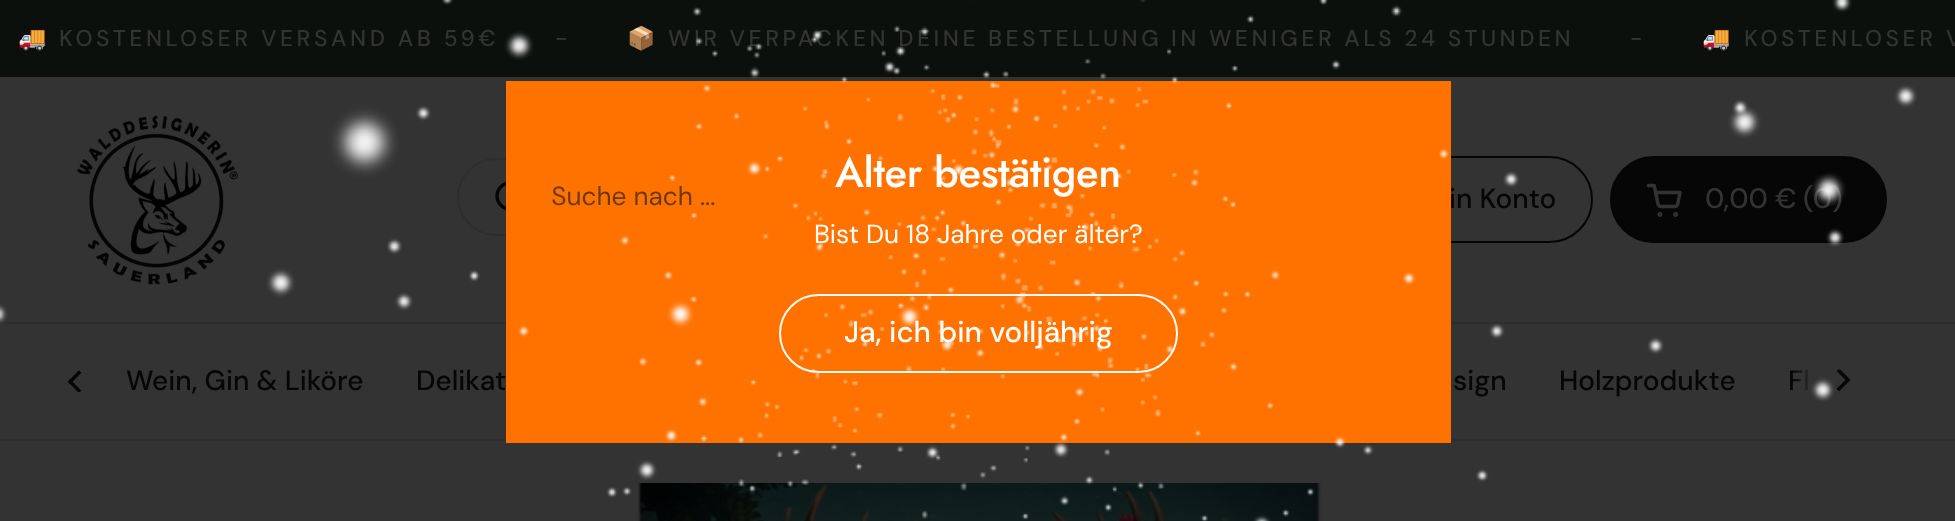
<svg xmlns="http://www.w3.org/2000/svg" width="1955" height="521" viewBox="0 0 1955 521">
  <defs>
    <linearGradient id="g1" gradientUnits="userSpaceOnUse" x1="1836" y1="381" x2="1792" y2="381"><stop offset="0.5" stop-color="#333333"/><stop offset="1" stop-color="#333333" stop-opacity="0"/></linearGradient>
  </defs>
  <rect width="100%" height="100%" fill="#333333"/>
  <rect x="0" y="0" width="1955" height="77" fill="#0c100d"/>
  <text x="18" y="46" font-family="Noto Color Emoji" font-size="22.75" letter-spacing="3.5" fill="#333333">🚚</text>
  <text x="59" y="46" font-family="DM Sans" font-size="22.75" font-weight="500" letter-spacing="3.5" fill="#333333">KOSTENLOSER VERSAND AB 59€</text>
  <text x="555" y="46" font-family="DM Sans" font-size="22.75" font-weight="500" letter-spacing="3.5" fill="#333333">-</text>
  <text x="627" y="46" font-family="Noto Color Emoji" font-size="22.75" letter-spacing="3.5" fill="#333333">📦</text>
  <text x="668" y="46" word-spacing="-0.5" font-family="DM Sans" font-size="22.75" font-weight="500" letter-spacing="3.5" fill="#333333">WIR VERPACKEN DEINE BESTELLUNG IN WENIGER ALS 24 STUNDEN</text>
  <text x="1630" y="46" font-family="DM Sans" font-size="22.75" font-weight="500" letter-spacing="3.5" fill="#333333">-</text>
  <text x="1702" y="46" font-family="Noto Color Emoji" font-size="22.75" letter-spacing="3.5" fill="#333333">🚚</text>
  <text x="1744" y="46" font-family="DM Sans" font-size="22.75" font-weight="500" letter-spacing="3.5" fill="#333333">KOSTENLOSER V</text>
  <rect x="0" y="322" width="1955" height="2" fill="#2e2e2e"/>
  <rect x="458" y="159" width="836" height="76" rx="38" fill="none" stroke="#2e2e2e" stroke-width="2"/>
  <rect x="1315" y="157" width="277" height="85" rx="42.5" fill="none" stroke="#060606" stroke-width="2"/>
  <text x="1449" y="208" font-family="'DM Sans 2'" font-size="28" font-weight="500" fill="#060606">in Konto</text>
  <rect x="0" y="439" width="1955" height="2" fill="#2e2e2e"/>
  <rect x="506" y="81" width="945" height="362" fill="#ff7200"/>
  <text x="835" y="187" font-family="Jost" font-size="42" font-weight="500" letter-spacing="-0.4" fill="#ffffff">Alter bestätigen</text>
  <text x="814" y="243" font-family="DM Sans" font-size="26.25" fill="#ffffff">Bist Du 18 Jahre oder älter?</text>
  <rect x="780" y="295" width="397" height="77" rx="38.5" fill="none" stroke="#ffffff" stroke-width="2"/>
  <text x="844" y="342" font-family="'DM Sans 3'" font-size="29.5" font-weight="500" fill="#ffffff">Ja, ich bin volljährig</text>
  <image x="77" y="115" width="161" height="170" href="img2.png"/>
  <image x="495" y="181" width="11" height="30" href="img3.png"/>
  <rect x="1611" y="157" width="275" height="85" rx="42.5" fill="#060606" stroke="#060606" stroke-width="2"/>
  <image x="1646" y="183" width="36" height="34" href="img4.png"/>
  <text x="1705" y="208" font-family="'DM Sans 2'" font-size="28" font-weight="500" fill="#333333">0,00 €</text>
  <text x="1803" y="208" font-family="'DM Sans 2'" font-size="28" font-weight="500" fill="#333333">(0</text>
  <text x="1832" y="208" font-family="'DM Sans 2'" font-size="28" font-weight="500" fill="#333333">)</text>
  <image x="68" y="370" width="14" height="23" href="img5.png"/>
  <text x="126" y="390" font-family="'DM Sans 2'" font-size="28" font-weight="500" fill="#060606">Wein, Gin &amp; Liköre</text>
  <text x="416" y="390" font-family="'DM Sans 2'" font-size="28" font-weight="500" fill="#060606">Delikat</text>
  <text x="1453" y="390" font-family="'DM Sans 2'" font-size="28" font-weight="500" fill="#060606">sign</text>
  <text x="1559" y="390" font-family="'DM Sans 2'" font-size="28" font-weight="500" fill="#060606">Holzprodukte</text>
  <text x="1788" y="390" font-family="'DM Sans 2'" font-size="28" font-weight="500" fill="#060606">Fl</text>
  <rect x="1793" y="369" width="15" height="21" fill="url(#g1)"/>
  <image x="1836" y="369" width="14" height="23" href="img6.png"/>
  <image x="637" y="483" width="686" height="38" href="img7.png"/>
  <image x="0" y="0" width="1917" height="521" href="img1.png"/>
</svg>
